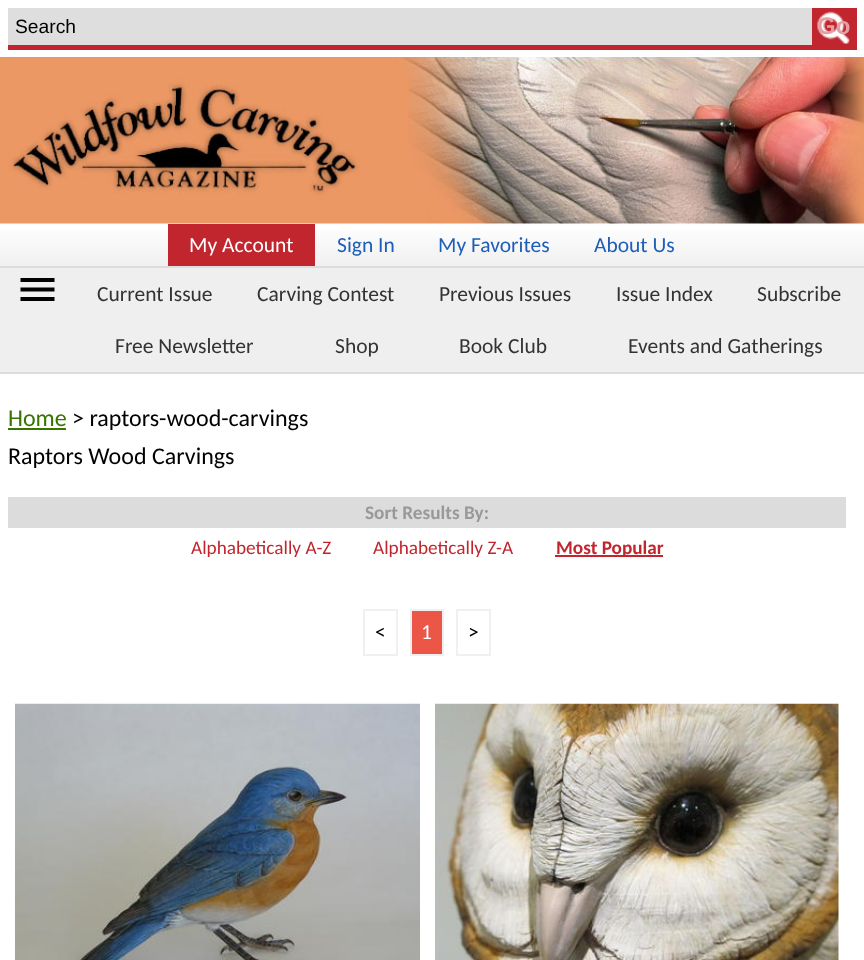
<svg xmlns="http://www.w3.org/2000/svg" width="864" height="960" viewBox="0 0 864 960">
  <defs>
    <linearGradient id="g1" gradientUnits="userSpaceOnUse" x1="432" y1="223" x2="432" y2="266"><stop offset="0" stop-color="#ffffff"/><stop offset="1" stop-color="#f0f0f0"/></linearGradient>
  </defs>
  <rect width="100%" height="100%" fill="#ffffff"/>
  <rect x="8" y="45" width="849" height="5" fill="#c1262e"/>
  <rect x="8" y="8" width="804" height="37" fill="#dedede"/>
  <text x="15" y="33" font-family="Liberation Sans" font-size="19.25" fill="#000000">Search</text>
  <rect x="812" y="8" width="45" height="37" fill="#c1262e"/>
  <image x="817" y="11" width="33" height="33" href="img1.png"/>
  <text x="817" y="34" font-family="Liberation Sans" font-size="24" font-weight="bold" fill="#e49fa3">Go</text>
  <image x="0" y="57" width="864" height="167" href="img2.png"/>
  <rect x="0" y="230" width="864" height="36" fill="url(#g1)"/>
  <rect x="168" y="224" width="147" height="42" fill="#c1262e"/>
  <text x="189" y="252" font-family="Carlito" font-size="21.5" fill="#ffffff">My Account</text>
  <text x="337" y="252" font-family="Carlito" font-size="21.5" fill="#1d5eb8">Sign In</text>
  <text x="438" y="252" font-family="Carlito" font-size="21.5" fill="#1d5eb8">My Favorites</text>
  <text x="594" y="252" font-family="Carlito" font-size="21.5" fill="#1d5eb8">About Us</text>
  <rect x="0" y="268" width="864" height="104" fill="#efefef"/>
  <rect x="0" y="266" width="864" height="2" fill="#dddddd"/>
  <rect x="0" y="372" width="864" height="2" fill="#dddddd"/>
  <path d="M20.5 278H54.5V282H20.5ZM20.5 291.5V287.5H54.5V291.5ZM20.5 301V297H54.5V301Z" fill="#000000"/>
  <text x="97" y="301" font-family="Carlito" font-size="21.5" fill="#333333">Current Issue</text>
  <text x="257" y="301" font-family="Carlito" font-size="21.5" fill="#333333">Carving Contest</text>
  <text x="439" y="301" font-family="Carlito" font-size="21.5" fill="#333333">Previous Issues</text>
  <text x="616" y="301" font-family="Carlito" font-size="21.5" fill="#333333">Issue Index</text>
  <text x="757" y="301" font-family="Carlito" font-size="21.5" fill="#333333">Subscribe</text>
  <text x="115" y="353" font-family="Carlito" font-size="21.5" fill="#333333">Free Newsletter</text>
  <text x="335" y="353" font-family="Carlito" font-size="21.5" fill="#333333">Shop</text>
  <text x="459" y="353" font-family="Carlito" font-size="21.5" fill="#333333">Book Club</text>
  <text x="628" y="353" font-family="Carlito" font-size="21.5" fill="#333333">Events and Gatherings</text>
  <text x="8" y="426" font-family="Carlito" font-size="24" fill="#377400">Home</text>
  <rect x="8" y="428" width="58" height="2" fill="#377400"/>
  <text x="72" y="426" font-family="Carlito" font-size="24" fill="#000000">&gt; raptors-wood-carvings</text>
  <text x="8" y="464" font-family="Carlito" font-size="24" fill="#000000">Raptors Wood Carvings</text>
  <rect x="8" y="497" width="838" height="31" fill="#dcdcdc"/>
  <text x="365" y="519" font-family="Carlito" font-size="19.25" font-weight="bold" fill="#999999">Sort Results By:</text>
  <text x="191" y="554" font-family="Carlito" font-size="19.25" fill="#c1262e">Alphabetically A-Z</text>
  <text x="373" y="554" font-family="Carlito" font-size="19.25" fill="#c1262e">Alphabetically Z-A</text>
  <rect x="555" y="555" width="108" height="2" fill="#c1262e"/>
  <text x="556" y="554" font-family="Carlito" font-size="19.25" font-weight="bold" fill="#c1262e">Most Popular</text>
  <rect x="364" y="610" width="33" height="45" fill="none" stroke="#f0f0f0" stroke-width="2"/>
  <text x="375" y="639" font-family="Carlito" font-size="21.5" fill="#000000">&lt;</text>
  <rect x="411" y="610" width="32" height="45" fill="#ec5647" stroke="#f0f0f0" stroke-width="2"/>
  <text x="421" y="639" font-family="Carlito" font-size="21.5" fill="#ffffff">1</text>
  <rect x="457" y="610" width="33" height="45" fill="none" stroke="#f0f0f0" stroke-width="2"/>
  <text x="468" y="639" font-family="Carlito" font-size="21.5" fill="#000000">&gt;</text>
  <image x="15" y="703" width="405" height="257" href="img3.png"/>
  <image x="435" y="703" width="404" height="257" href="img4.png"/>
</svg>
